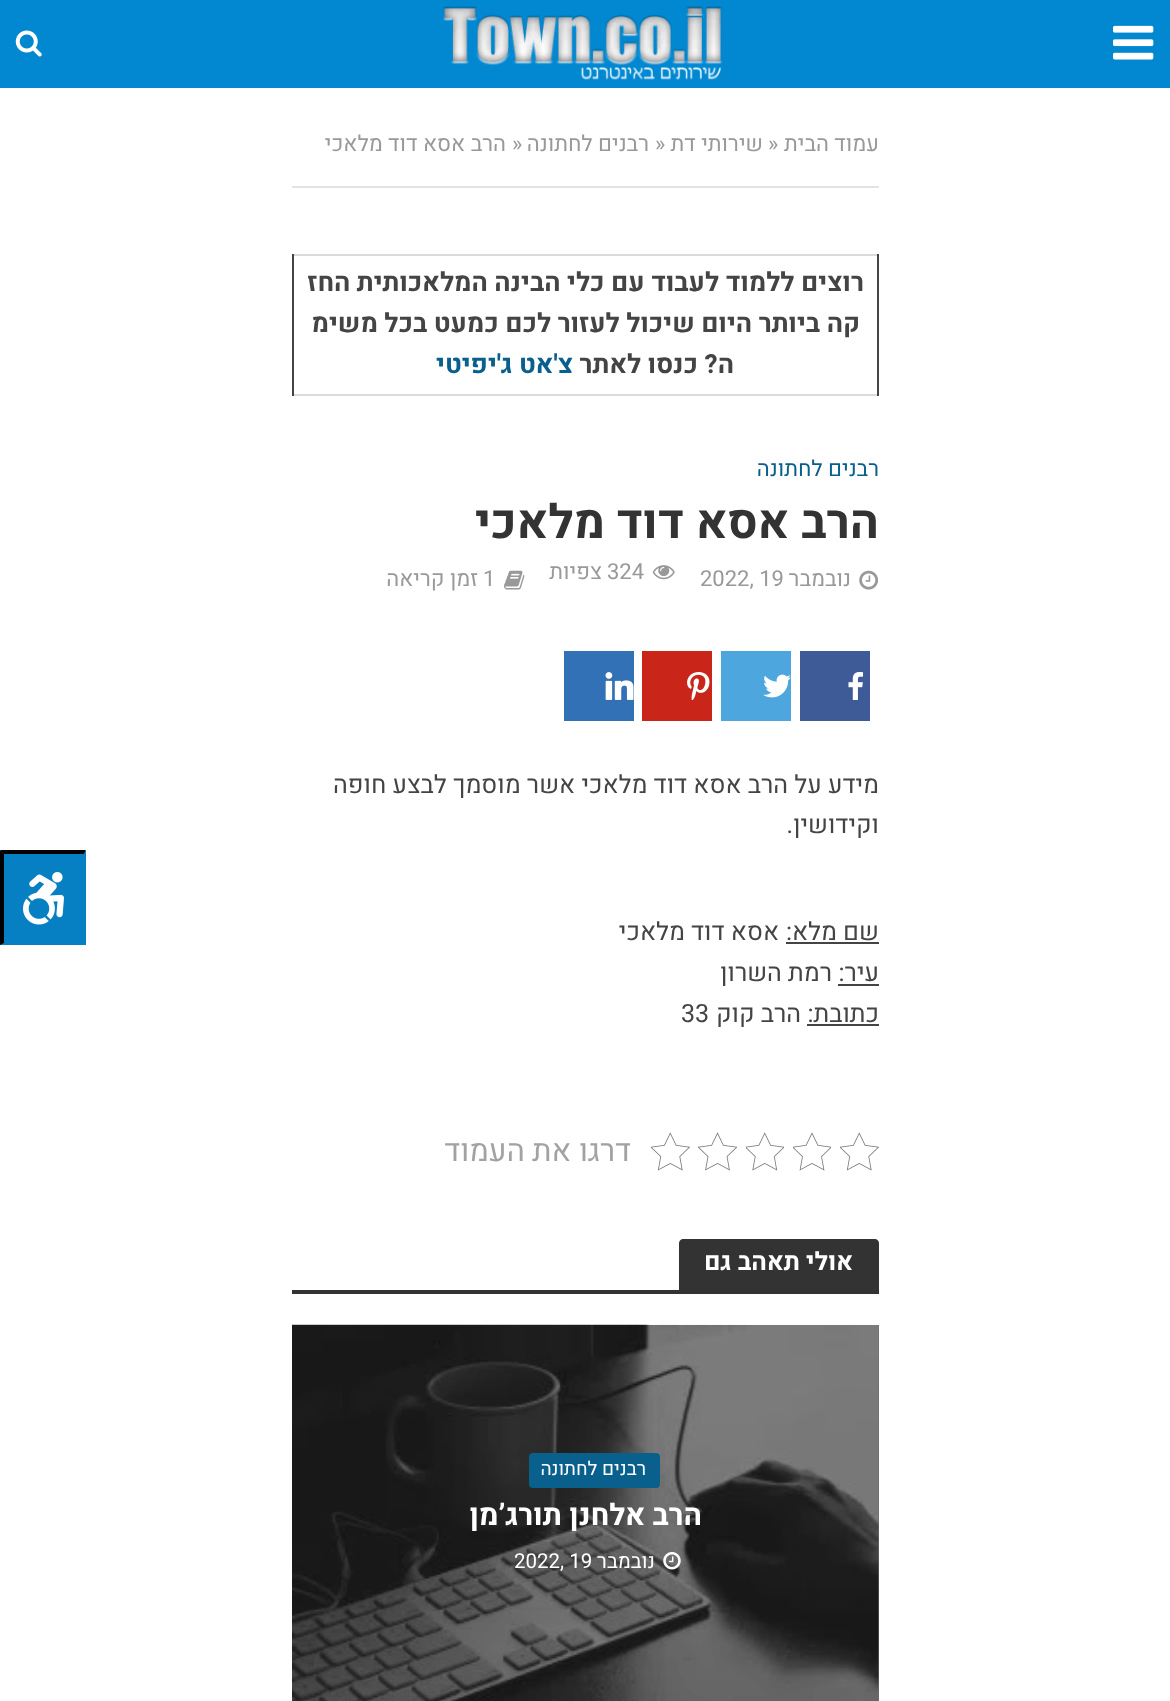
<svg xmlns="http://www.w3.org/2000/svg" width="1170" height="1701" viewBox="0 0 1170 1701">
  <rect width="100%" height="100%" fill="#ffffff"/>
  <rect x="292" y="394" width="587" height="2" fill="#dadada"/>
  <rect x="0" y="0" width="1170" height="88" fill="#0288d1"/>
  <image x="1113" y="25" width="41" height="35" href="img1.png"/>
  <image x="443" y="6" width="280" height="74" href="img2.png"/>
  <image x="15" y="30" width="27" height="27" href="img3.png"/>
  <rect x="292" y="186" width="587" height="2" fill="#e3e3e3"/>
  <text x="879" y="151" font-family="Heebo" font-size="22" direction="rtl" fill="#999999">עמוד הבית</text>
  <text x="768" y="151" font-family="Heebo" font-size="22" fill="#999999">»</text>
  <text x="763" y="151" font-family="Heebo" font-size="22" direction="rtl" fill="#999999">שירותי דת</text>
  <text x="655" y="151" font-family="Heebo" font-size="22" fill="#999999">»</text>
  <text x="649" y="151" font-family="Heebo" font-size="22" direction="rtl" fill="#999999">רבנים לחתונה</text>
  <text x="512" y="151" font-family="Heebo" font-size="22" fill="#999999">»</text>
  <text x="506" y="151" font-family="Heebo" font-size="22" direction="rtl" fill="#999999">הרב אסא דוד מלאכי</text>
  <rect x="292" y="254" width="587" height="2" fill="#dadada"/>
  <rect x="877" y="254" width="2" height="142" fill="#444444"/>
  <rect x="292" y="254" width="2" height="142" fill="#444444"/>
  <text x="864" y="291" font-family="Heebo" font-size="26.25" font-weight="bold" direction="rtl" fill="#444444">רוצים ללמוד לעבוד עם כלי הבינה המלאכותית החז</text>
  <text x="860" y="332" font-family="Heebo" font-size="26.25" font-weight="bold" direction="rtl" fill="#444444">קה ביותר היום שיכול לעזור לכם כמעט בכל משימ</text>
  <text x="734" y="373" font-family="Heebo" font-size="26.25" font-weight="bold" direction="rtl" fill="#444444">ה?</text>
  <text x="698" y="373" font-family="Heebo" font-size="26.25" font-weight="bold" direction="rtl" fill="#444444">כנסו לאתר</text>
  <text x="573" y="373" font-family="Heebo" font-size="26.25" font-weight="bold" direction="rtl" fill="#09608c">צ'אט ג'יפיטי</text>
  <text x="879" y="476" font-family="Heebo" font-size="22" direction="rtl" fill="#09608c">רבנים לחתונה</text>
  <text x="879" y="538" font-family="Heebo" font-size="47" font-weight="bold" direction="rtl" fill="#333333">הרב אסא דוד מלאכי</text>
  <image x="859" y="570" width="20" height="20" href="img4.png"/>
  <text x="851" y="586" font-family="Heebo" font-size="22" direction="rtl" fill="#999999">נובמבר</text>
  <text x="700" y="586" font-family="Heebo" font-size="22" fill="#999999">2022, 19</text>
  <image x="652" y="565" width="23" height="15" href="img5.png"/>
  <text x="607" y="579" font-family="Heebo" font-size="22" fill="#999999">324</text>
  <text x="602" y="579" font-family="Heebo" font-size="22" direction="rtl" fill="#999999">צפיות</text>
  <image x="504" y="570" width="21" height="20" href="img6.png"/>
  <text x="483" y="586" font-family="Heebo" font-size="22" fill="#999999">1</text>
  <text x="478" y="586" font-family="Heebo" font-size="22" direction="rtl" fill="#999999">זמן קריאה</text>
  <rect x="800" y="651" width="70" height="70" fill="#3e5b98"/>
  <image x="848" y="672" width="16" height="28" href="img7.png"/>
  <rect x="721" y="651" width="70" height="70" fill="#4da7de"/>
  <image x="763" y="674" width="28" height="24" href="img8.png"/>
  <rect x="642" y="651" width="70" height="70" fill="#c92619"/>
  <image x="687" y="672" width="23" height="28" href="img9.png"/>
  <rect x="564" y="651" width="70" height="70" fill="#3371b7"/>
  <image x="605" y="672" width="29" height="28" href="img10.png"/>
  <text x="879" y="793" font-family="Heebo" font-size="25.1" direction="rtl" fill="#444444">מידע על הרב אסא דוד מלאכי אשר מוסמך לבצע חופה</text>
  <text x="879" y="833" font-family="Heebo" font-size="25.1" direction="rtl" fill="#444444">וקידושין.</text>
  <text x="879" y="940" font-family="Heebo" font-size="25.1" direction="rtl" fill="#444444">שם מלא:</text>
  <rect x="786" y="942" width="93" height="2" fill="#444444"/>
  <text x="779" y="940" font-family="Heebo" font-size="25.1" direction="rtl" fill="#444444">אסא דוד מלאכי</text>
  <text x="879" y="981" font-family="Heebo" font-size="25.1" direction="rtl" fill="#444444">עיר:</text>
  <rect x="838" y="984" width="41" height="2" fill="#444444"/>
  <text x="832" y="981" font-family="Heebo" font-size="25.1" direction="rtl" fill="#444444">רמת השרון</text>
  <text x="879" y="1022" font-family="Heebo" font-size="25.1" direction="rtl" fill="#444444">כתובת:</text>
  <rect x="807" y="1024" width="72" height="2" fill="#444444"/>
  <text x="801" y="1022" font-family="Heebo" font-size="25.1" direction="rtl" fill="#444444">הרב קוק</text>
  <text x="681" y="1022" font-family="Heebo" font-size="25.1" fill="#444444">33</text>
  <image x="840" y="1132" width="39" height="39" href="img11.png"/>
  <image x="793" y="1132" width="38" height="39" href="img12.png"/>
  <image x="746" y="1132" width="38" height="39" href="img13.png"/>
  <image x="698" y="1132" width="39" height="39" href="img14.png"/>
  <image x="651" y="1132" width="39" height="39" href="img11.png"/>
  <text x="631" y="1161" font-family="Heebo" font-size="30.75" direction="rtl" fill="#a2a2a2">דרגו את העמוד</text>
  <path d="M683 1239H875C877 1239 879 1241 879 1243V1290H679V1243C679 1241 681 1239 683 1239Z" fill="#333333"/>
  <text x="853" y="1270" font-family="Heebo" font-size="25.1" font-weight="bold" direction="rtl" fill="#ffffff">אולי תאהב גם</text>
  <rect x="292" y="1290" width="587" height="4" fill="#333333"/>
  <rect x="878" y="1325" width="1" height="376" fill="#6e6e6e"/>
  <image x="292" y="1324" width="587" height="377" href="img15.png"/>
  <rect x="529" y="1453" width="131" height="35" rx="4" fill="#09608c"/>
  <text x="646" y="1475" font-family="Heebo" font-size="19" direction="rtl" fill="#ffffff">רבנים לחתונה</text>
  <text x="702" y="1525" font-family="Heebo" font-size="29.75" font-weight="bold" direction="rtl" fill="#ffffff">הרב אלחנן תורג’מן</text>
  <image x="663" y="1552" width="18" height="18" href="img16.png"/>
  <text x="655" y="1568" font-family="Heebo" font-size="20.5" direction="rtl" fill="#ffffff">נובמבר</text>
  <text x="514" y="1568" font-family="Heebo" font-size="20.5" fill="#ffffff">2022, 19</text>
  <rect x="0" y="851" width="86" height="94" fill="#0780c3"/>
  <path d="M0 850H86L84 854H4Z" fill="#000000"/>
  <path d="M86 850V945L84 943V854Z" fill="#0780c3"/>
  <path d="M0 945V850L4 854V943Z" fill="#000000"/>
  <image x="23" y="872" width="41" height="53" href="img17.png"/>
</svg>
